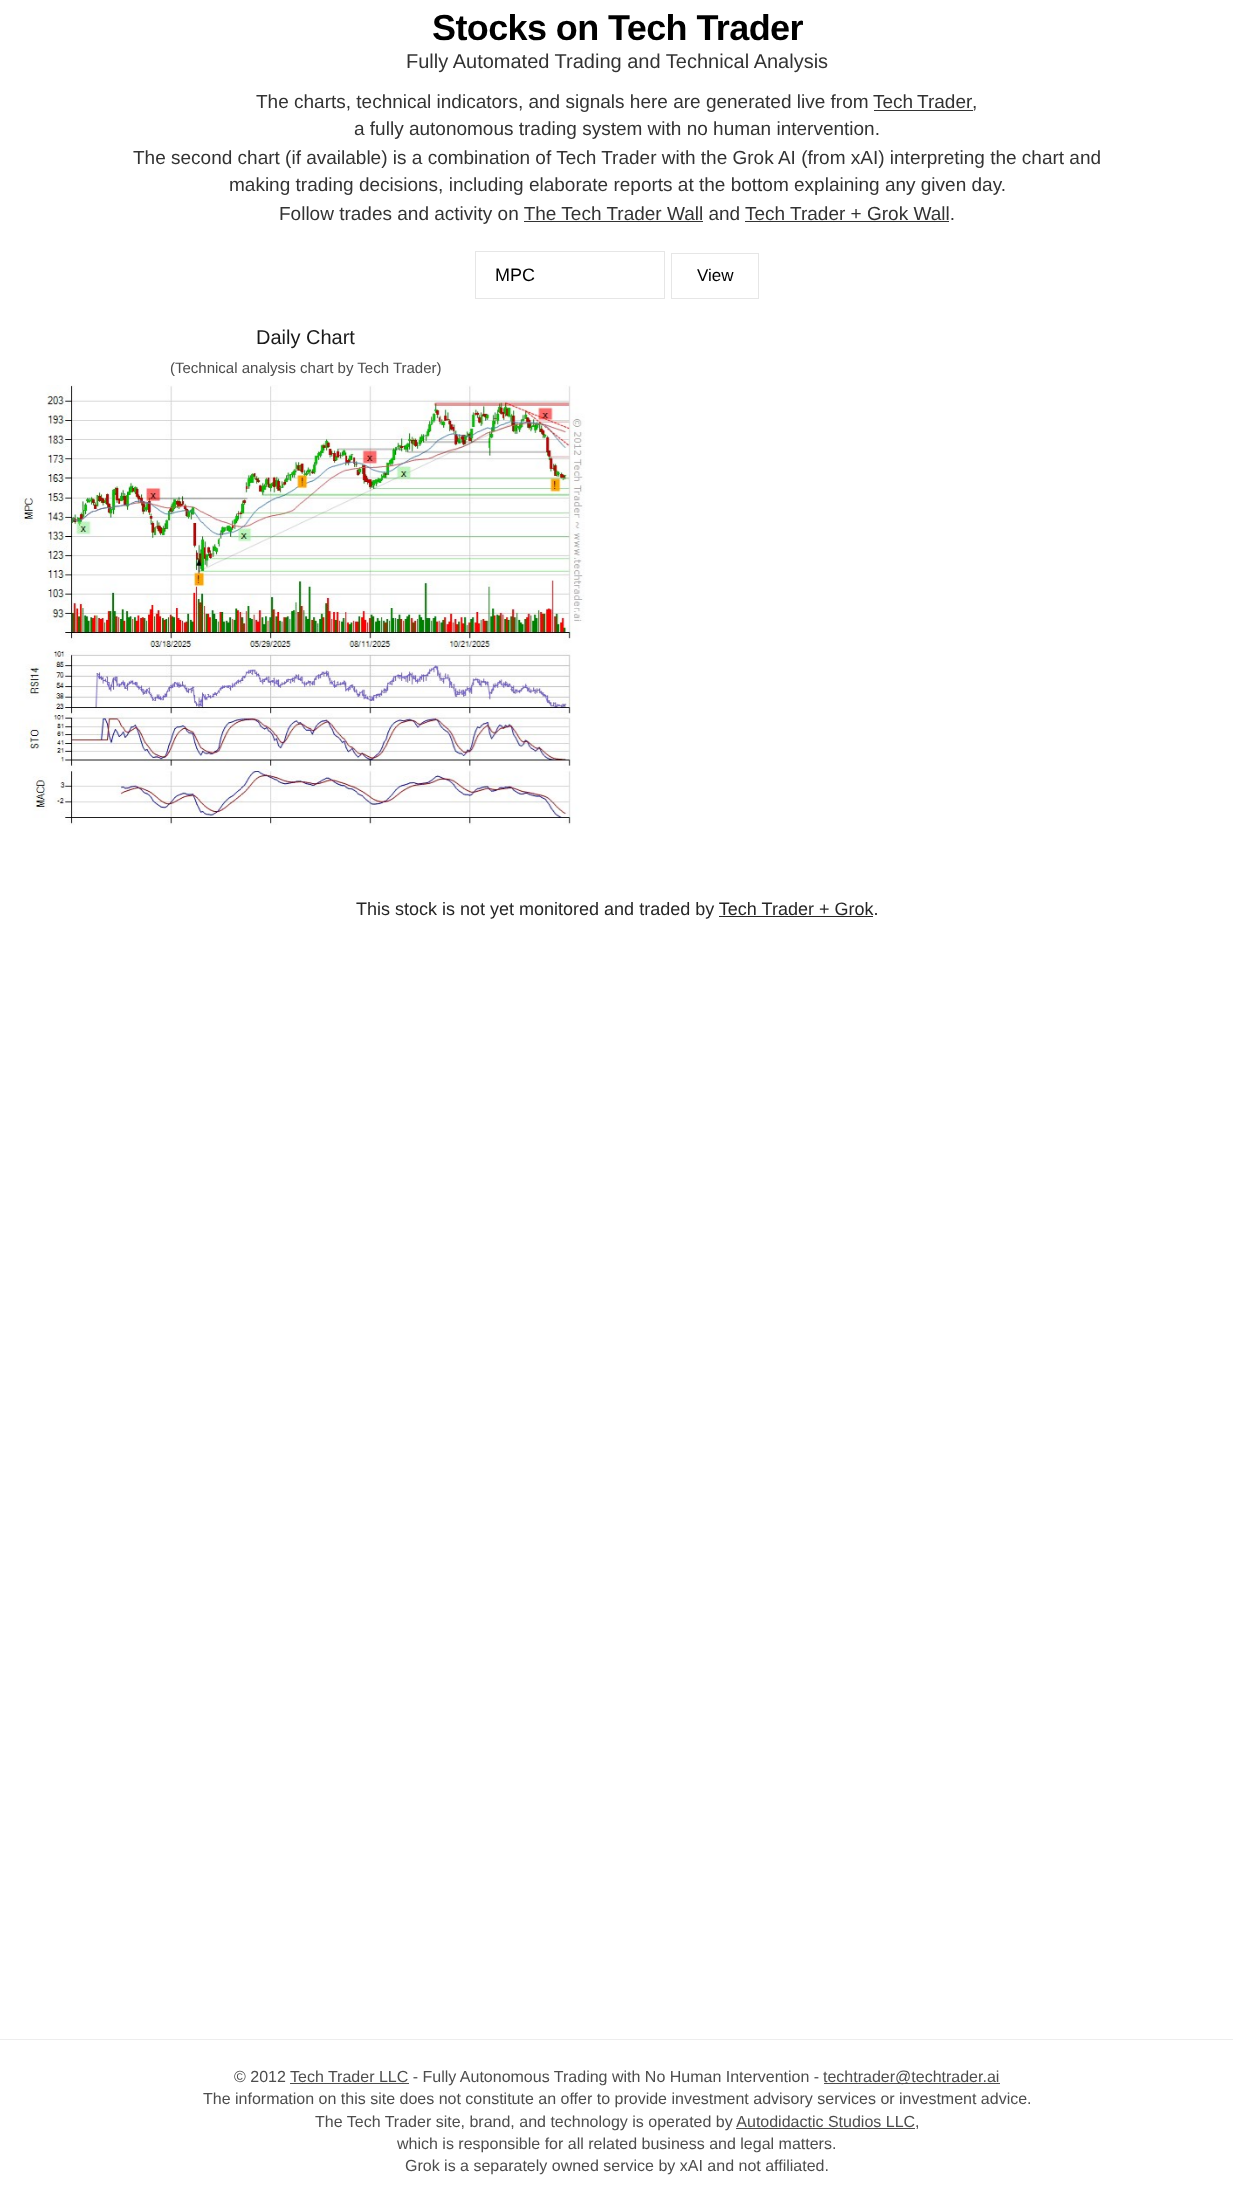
<svg xmlns="http://www.w3.org/2000/svg" width="1233" height="2202" viewBox="0 0 1233 2202">
  <rect width="100%" height="100%" fill="#ffffff"/>
  <text x="432" y="40" font-family="Liberation Sans" font-size="36" font-weight="bold" letter-spacing="-0.6" fill="#000000">Stocks on Tech Trader</text>
  <text x="406" y="68" font-family="Liberation Sans" font-size="20" fill="#333333">Fully Automated Trading and Technical Analysis</text>
  <text x="256" y="108" font-family="Liberation Sans" font-size="19" fill="#333333">The charts, technical indicators, and signals here are generated live from</text>
  <text x="873" y="108" word-spacing="-1" font-family="Liberation Sans" font-size="19" fill="#333333">Tech Trader</text>
  <rect x="874" y="110" width="99" height="1" fill="#333333"/>
  <text x="972" y="108" font-family="Liberation Sans" font-size="19" fill="#333333">,</text>
  <text x="354" y="135" font-family="Liberation Sans" font-size="19" fill="#333333">a fully autonomous trading system with no human intervention.</text>
  <text x="133" y="164" font-family="Liberation Sans" font-size="19" fill="#333333">The second chart (if available) is a combination of Tech Trader with the Grok AI (from xAI) interpreting the chart and</text>
  <text x="229" y="191" font-family="Liberation Sans" font-size="19" fill="#333333">making trading decisions, including elaborate reports at the bottom explaining any given day.</text>
  <text x="279" y="220" font-family="Liberation Sans" font-size="19" fill="#333333">Follow trades and activity on The Tech Trader Wall and</text>
  <text x="745" y="220" font-family="Liberation Sans" font-size="19" fill="#333333">Tech Trader + Grok Wall.</text>
  <rect x="745" y="221" width="204" height="1" fill="#333333"/>
  <rect x="524" y="221" width="179" height="1" fill="#333333"/>
  <rect x="475.5" y="251.5" width="189" height="47" fill="none" stroke="#e6e6e6"/>
  <text x="495" y="281" font-family="Liberation Sans" font-size="18" fill="#000000">MPC</text>
  <rect x="671.5" y="253.5" width="87" height="45" fill="none" stroke="#e6e6e6"/>
  <text x="697" y="281" font-family="Liberation Sans" font-size="17" fill="#000000">View</text>
  <text x="256" y="344" font-family="Liberation Sans" font-size="20" fill="#1a1a1a">Daily Chart</text>
  <text x="170" y="373" font-family="Liberation Sans" font-size="15" fill="#4d4d4d">(Technical analysis chart by Tech Trader)</text>
  <image x="19" y="385" width="566" height="440" href="img1.png"/>
  <text x="356" y="915" font-family="Liberation Sans" font-size="18" fill="#262626">This stock is not yet monitored and traded by Tech Trader + Grok.</text>
  <rect x="719" y="916" width="154" height="1" fill="#262626"/>
  <rect x="0" y="2039" width="1233" height="1" fill="#ededed"/>
  <text x="234" y="2082" font-family="Liberation Sans" font-size="16" fill="#4d4d4d">© 2012 Tech Trader LLC - Fully Autonomous Trading with No Human Intervention -</text>
  <rect x="824" y="2083" width="176" height="1" fill="#4d4d4d"/>
  <text x="823" y="2082" font-family="Liberation Sans" font-size="16" fill="#4d4d4d">techtrader@techtrader.ai</text>
  <rect x="290" y="2083" width="119" height="1" fill="#4d4d4d"/>
  <text x="203" y="2104" font-family="Liberation Sans" font-size="16" fill="#4d4d4d">The information on this site does not constitute an offer to provide investment advisory services or investment advice.</text>
  <text x="315" y="2127" font-family="Liberation Sans" font-size="16" fill="#4d4d4d">The Tech Trader site, brand, and technology is operated by Autodidactic Studios LLC,</text>
  <rect x="736" y="2128" width="179" height="1" fill="#4d4d4d"/>
  <text x="397" y="2149" font-family="Liberation Sans" font-size="16" fill="#4d4d4d">which is responsible for all related business and legal matters.</text>
  <text x="405" y="2171" font-family="Liberation Sans" font-size="16" fill="#4d4d4d">Grok is a separately owned service by xAI and not affiliated.</text>
</svg>
